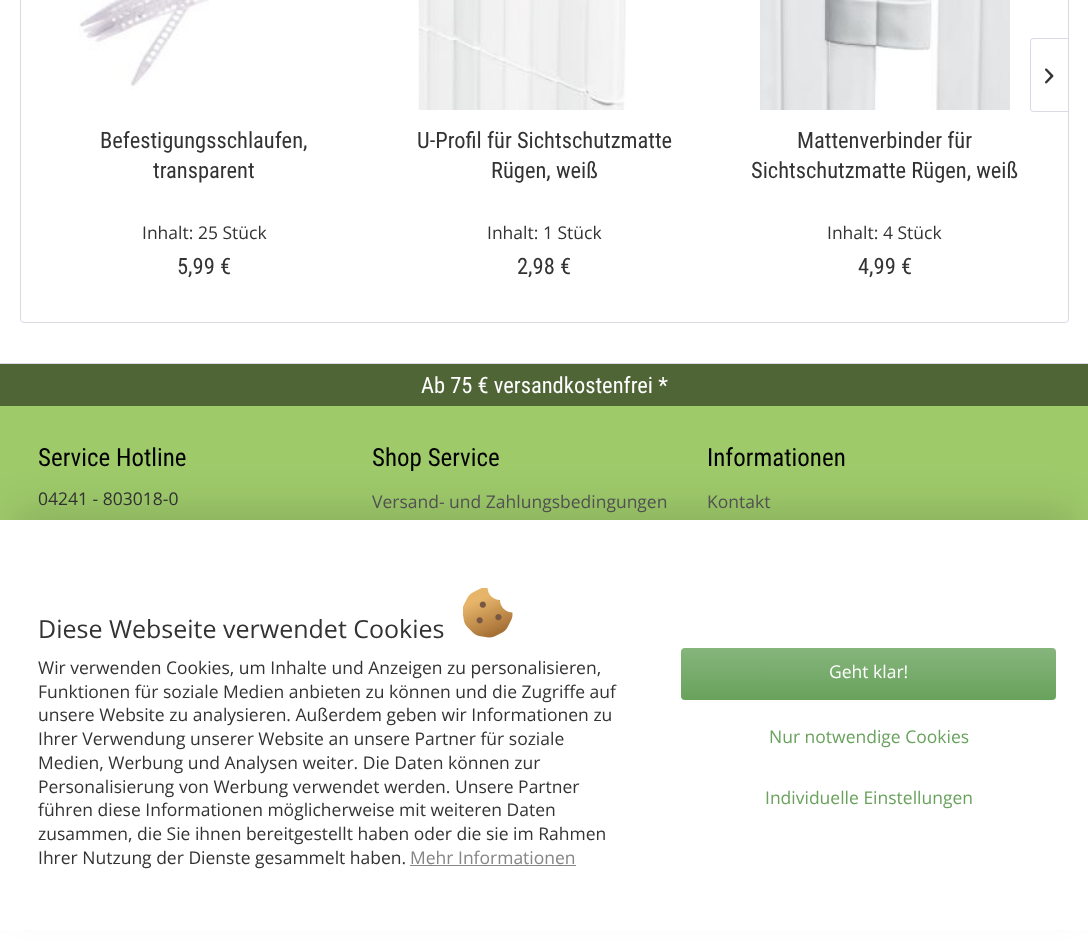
<svg xmlns="http://www.w3.org/2000/svg" width="1088" height="941" viewBox="0 0 1088 941">
  <defs>
    <filter id="blur1" x="-50%" y="-200%" width="200%" height="500%"><feGaussianBlur stdDeviation="19"/></filter>
    <linearGradient id="g1" gradientUnits="userSpaceOnUse" x1="869" y1="648" x2="869" y2="700"><stop offset="0" stop-color="#86b57c"/><stop offset="1" stop-color="#68a25c"/></linearGradient>
  </defs>
  <rect width="100%" height="100%" fill="#ffffff"/>
  <rect x="20.5" y="-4.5" width="1048" height="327" rx="3.5" fill="none" stroke="#dadae5"/>
  <path d="M1034 38H1068V112H1034C1032 112 1030 111 1030 109V41C1030 39 1032 38 1034 38ZM1034 39H1068V111H1034C1032 111 1031 110 1031 109V41C1031 40 1032 39 1034 39Z" fill="#dadae5" fill-rule="evenodd"/>
  <image x="1045" y="68" width="9" height="16" href="img1.png"/>
  <image x="79" y="0" width="130" height="90" href="img2.png"/>
  <text x="100" y="148" font-family="Roboto Condensed" font-size="22.5" fill="#333333">Befestigungsschlaufen,</text>
  <text x="153" y="178" font-family="Roboto Condensed" font-size="22.5" fill="#333333">transparent</text>
  <text x="142" y="239" font-family="Open Sans" font-size="17.5" fill="#333333">Inhalt: 25 Stück</text>
  <text x="177" y="274" font-family="Roboto Condensed" font-size="22.5" fill="#333333">5,99 €</text>
  <image x="418" y="0" width="208" height="110" href="img3.png"/>
  <text x="417" y="148" font-family="Roboto Condensed" font-size="22.5" fill="#333333">U-Profil für Sichtschutzmatte</text>
  <text x="491" y="178" font-family="Roboto Condensed" font-size="22.5" fill="#333333">Rügen, weiß</text>
  <text x="487" y="239" font-family="Open Sans" font-size="17.5" fill="#333333">Inhalt: 1 Stück</text>
  <text x="517" y="274" font-family="Roboto Condensed" font-size="22.5" fill="#333333">2,98 €</text>
  <image x="760" y="0" width="250" height="110" href="img4.png"/>
  <text x="797" y="148" font-family="Roboto Condensed" font-size="22.5" fill="#333333">Mattenverbinder für</text>
  <text x="751" y="178" font-family="Roboto Condensed" font-size="22.5" fill="#333333">Sichtschutzmatte Rügen, weiß</text>
  <text x="827" y="239" font-family="Open Sans" font-size="17.5" fill="#333333">Inhalt: 4 Stück</text>
  <text x="858" y="274" font-family="Roboto Condensed" font-size="22.5" fill="#333333">4,99 €</text>
  <rect x="0" y="406" width="1088" height="114" fill="#9eca6a"/>
  <rect x="0" y="363" width="1088" height="1" fill="#dadae5"/>
  <rect x="0" y="364" width="1088" height="42" fill="#4f6536"/>
  <text x="421" y="393" font-family="Roboto Condensed" font-size="22.5" fill="#ffffff">Ab 75 € versandkostenfrei *</text>
  <text x="38" y="466" font-family="Roboto Condensed" font-size="25" fill="#000000">Service Hotline</text>
  <text x="38" y="505" font-family="Open Sans" font-size="17.5" fill="#333333">04241 - 803018-0</text>
  <text x="372" y="466" font-family="Roboto Condensed" font-size="25" fill="#000000">Shop Service</text>
  <text x="372" y="508" font-family="Open Sans" font-size="17.5" fill="#555555">Versand- und Zahlungsbedingungen</text>
  <text x="707" y="466" font-family="Roboto Condensed" font-size="25" fill="#000000">Informationen</text>
  <text x="707" y="508" font-family="Open Sans" font-size="17.5" fill="#555555">Kontakt</text>
  <rect x="13" y="508" width="1063" height="396" fill="#000000" fill-opacity="0.12" filter="url(#blur1)"/>
  <rect x="0" y="520" width="1088" height="410" fill="#ffffff"/>
  <text x="38" y="638" font-family="Open Sans" font-size="25" fill="#333333">Diese Webseite verwendet Cookies</text>
  <image x="463" y="588" width="50" height="50" href="img5.png"/>
  <text x="38" y="674" font-family="Open Sans" font-size="17.5" fill="#333333">Wir verwenden Cookies, um Inhalte und Anzeigen zu personalisieren,</text>
  <text x="38" y="698" font-family="Open Sans" font-size="17.5" fill="#333333">Funktionen für soziale Medien anbieten zu können und die Zugriffe auf</text>
  <text x="38" y="721" font-family="Open Sans" font-size="17.5" fill="#333333">unsere Website zu analysieren. Außerdem geben wir Informationen zu</text>
  <text x="38" y="745" font-family="Open Sans" font-size="17.5" fill="#333333">Ihrer Verwendung unserer Website an unsere Partner für soziale</text>
  <text x="38" y="769" font-family="Open Sans" font-size="17.5" fill="#333333">Medien, Werbung und Analysen weiter. Die Daten können zur</text>
  <text x="38" y="793" font-family="Open Sans" font-size="17.5" fill="#333333">Personalisierung von Werbung verwendet werden. Unsere Partner</text>
  <text x="38" y="816" font-family="Open Sans" font-size="17.5" fill="#333333">führen diese Informationen möglicherweise mit weiteren Daten</text>
  <text x="38" y="840" font-family="Open Sans" font-size="17.5" fill="#333333">zusammen, die Sie ihnen bereitgestellt haben oder die sie im Rahmen</text>
  <text x="38" y="864" font-family="Open Sans" font-size="17.5" fill="#333333">Ihrer Nutzung der Dienste gesammelt haben.</text>
  <text x="410" y="864" font-family="Open Sans" font-size="17.5" fill="#858585">Mehr Informationen</text>
  <rect x="410" y="865" width="166" height="1" fill="#858585"/>
  <rect x="681" y="648" width="375" height="52" rx="4" fill="url(#g1)"/>
  <text x="829" y="678" font-family="Open Sans" font-size="17.5" fill="#ffffff">Geht klar!</text>
  <text x="769" y="743" font-family="Open Sans" font-size="17.5" fill="#68a25c">Nur notwendige Cookies</text>
  <text x="765" y="804" font-family="Open Sans" font-size="17.5" fill="#68a25c">Individuelle Einstellungen</text>
</svg>
